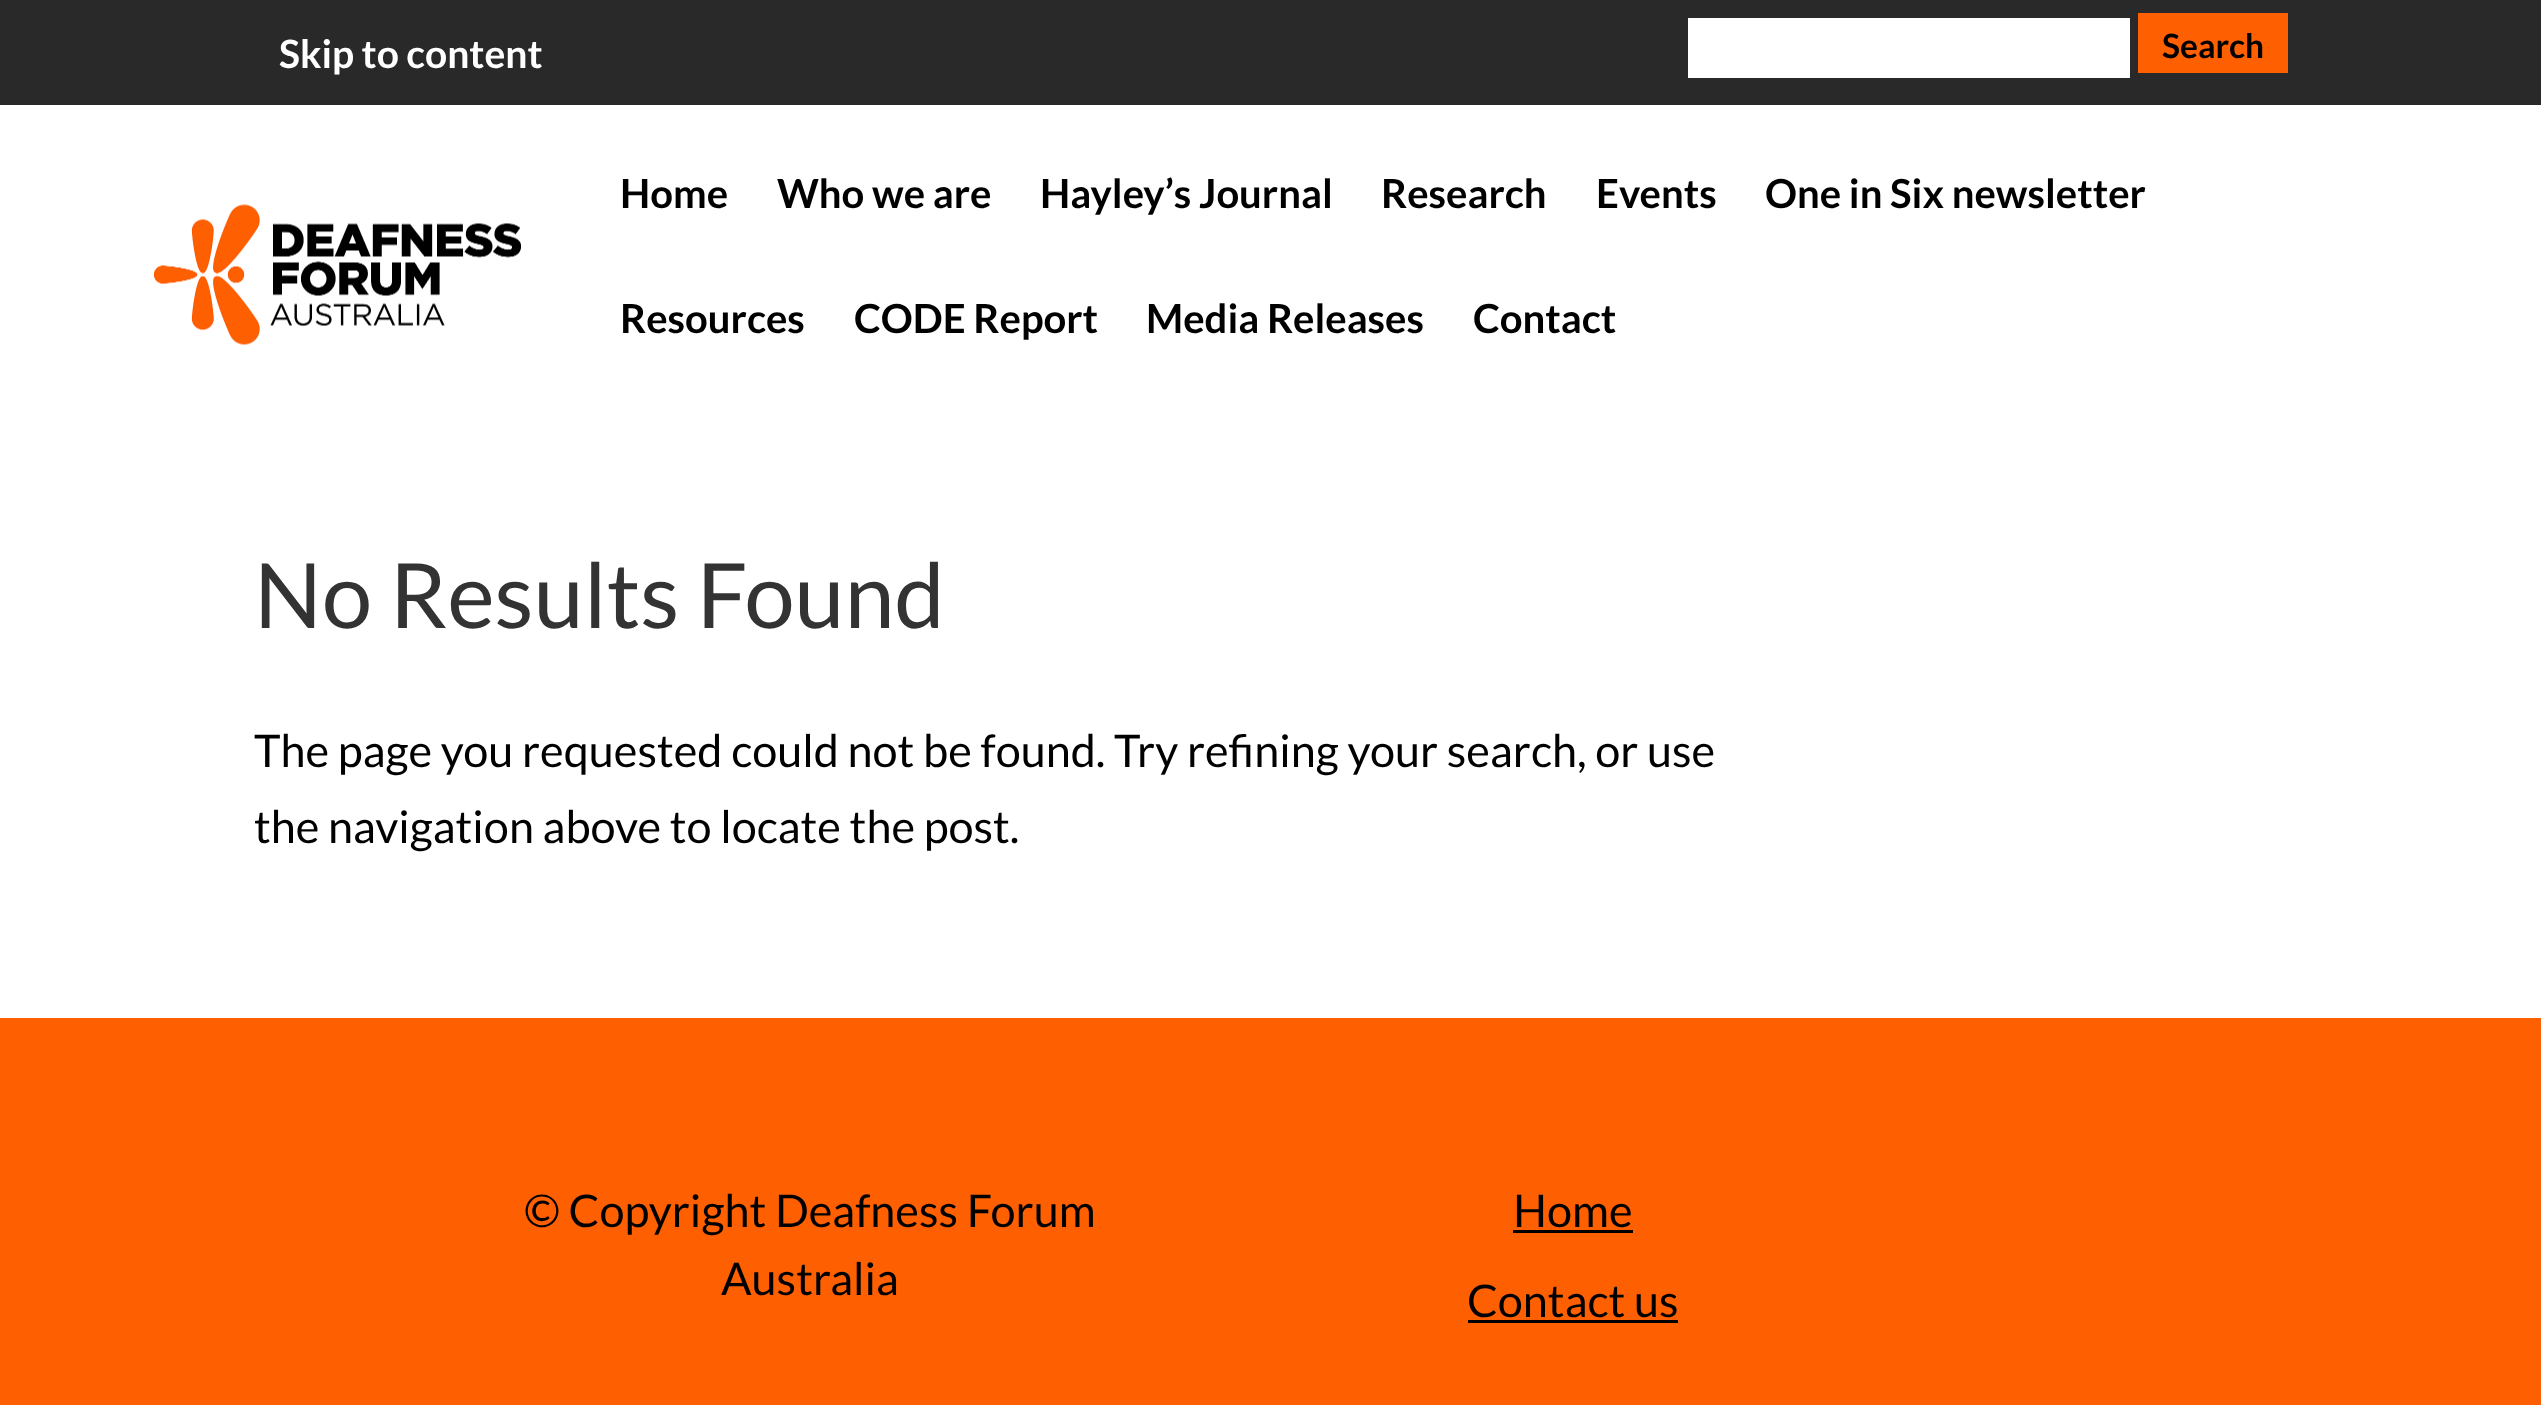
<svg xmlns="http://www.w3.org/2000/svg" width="2541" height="1405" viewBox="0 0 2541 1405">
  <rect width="100%" height="100%" fill="#ffffff"/>
  <rect x="0" y="0" width="2541" height="105" fill="#292929"/>
  <text x="279" y="68" font-family="Lato" font-size="39" font-weight="bold" fill="#ffffff">Skip to content</text>
  <rect x="1688" y="18" width="442" height="60" fill="#ffffff"/>
  <rect x="2138" y="13" width="150" height="60" fill="#fe5f00"/>
  <text x="2162" y="58" font-family="Lato" font-size="33.5" font-weight="bold" fill="#000000">Search</text>
  <image x="153" y="204" width="368" height="141" href="img1.png"/>
  <text x="620" y="208" font-family="Lato" font-size="40" font-weight="bold" fill="#000000">Home</text>
  <text x="777" y="208" font-family="Lato" font-size="40" font-weight="bold" fill="#000000">Who we are</text>
  <text x="1040" y="208" font-family="Lato" font-size="40" font-weight="bold" fill="#000000">Hayley’s Journal</text>
  <text x="1381" y="208" font-family="Lato" font-size="40" font-weight="bold" fill="#000000">Research</text>
  <text x="1596" y="208" font-family="Lato" font-size="40" font-weight="bold" fill="#000000">Events</text>
  <text x="1765" y="208" font-family="Lato" font-size="40" font-weight="bold" fill="#000000">One in Six newsletter</text>
  <text x="620" y="333" font-family="Lato" font-size="40" font-weight="bold" fill="#000000">Resources</text>
  <text x="854" y="333" font-family="Lato" font-size="40" font-weight="bold" fill="#000000">CODE Report</text>
  <text x="1146" y="333" font-family="Lato" font-size="40" font-weight="bold" fill="#000000">Media Releases</text>
  <text x="1473" y="333" font-family="Lato" font-size="40" font-weight="bold" fill="#000000">Contact</text>
  <text x="254" y="628" font-family="Lato" font-size="90" fill="#333333">No Results Found</text>
  <text x="254" y="767" font-family="Lato" font-size="45" fill="#000000">The page you requested could not be found. Try refining your search, or use</text>
  <text x="254" y="843" font-family="Lato" font-size="45" fill="#000000">the navigation above to locate the post.</text>
  <rect x="0" y="1018" width="2541" height="387" fill="#fe5f00"/>
  <text x="524" y="1227" font-family="Lato" font-size="45" fill="#000000">© Copyright Deafness Forum</text>
  <text x="721" y="1295" font-family="Lato" font-size="45" fill="#000000">Australia</text>
  <text x="1513" y="1227" font-family="Lato" font-size="45" fill="#000000">Home</text>
  <rect x="1513" y="1230" width="120" height="3" fill="#000000"/>
  <text x="1467" y="1317" font-family="Lato" font-size="45" fill="#000000">Contact us</text>
  <rect x="1468" y="1320" width="210" height="3" fill="#000000"/>
</svg>
